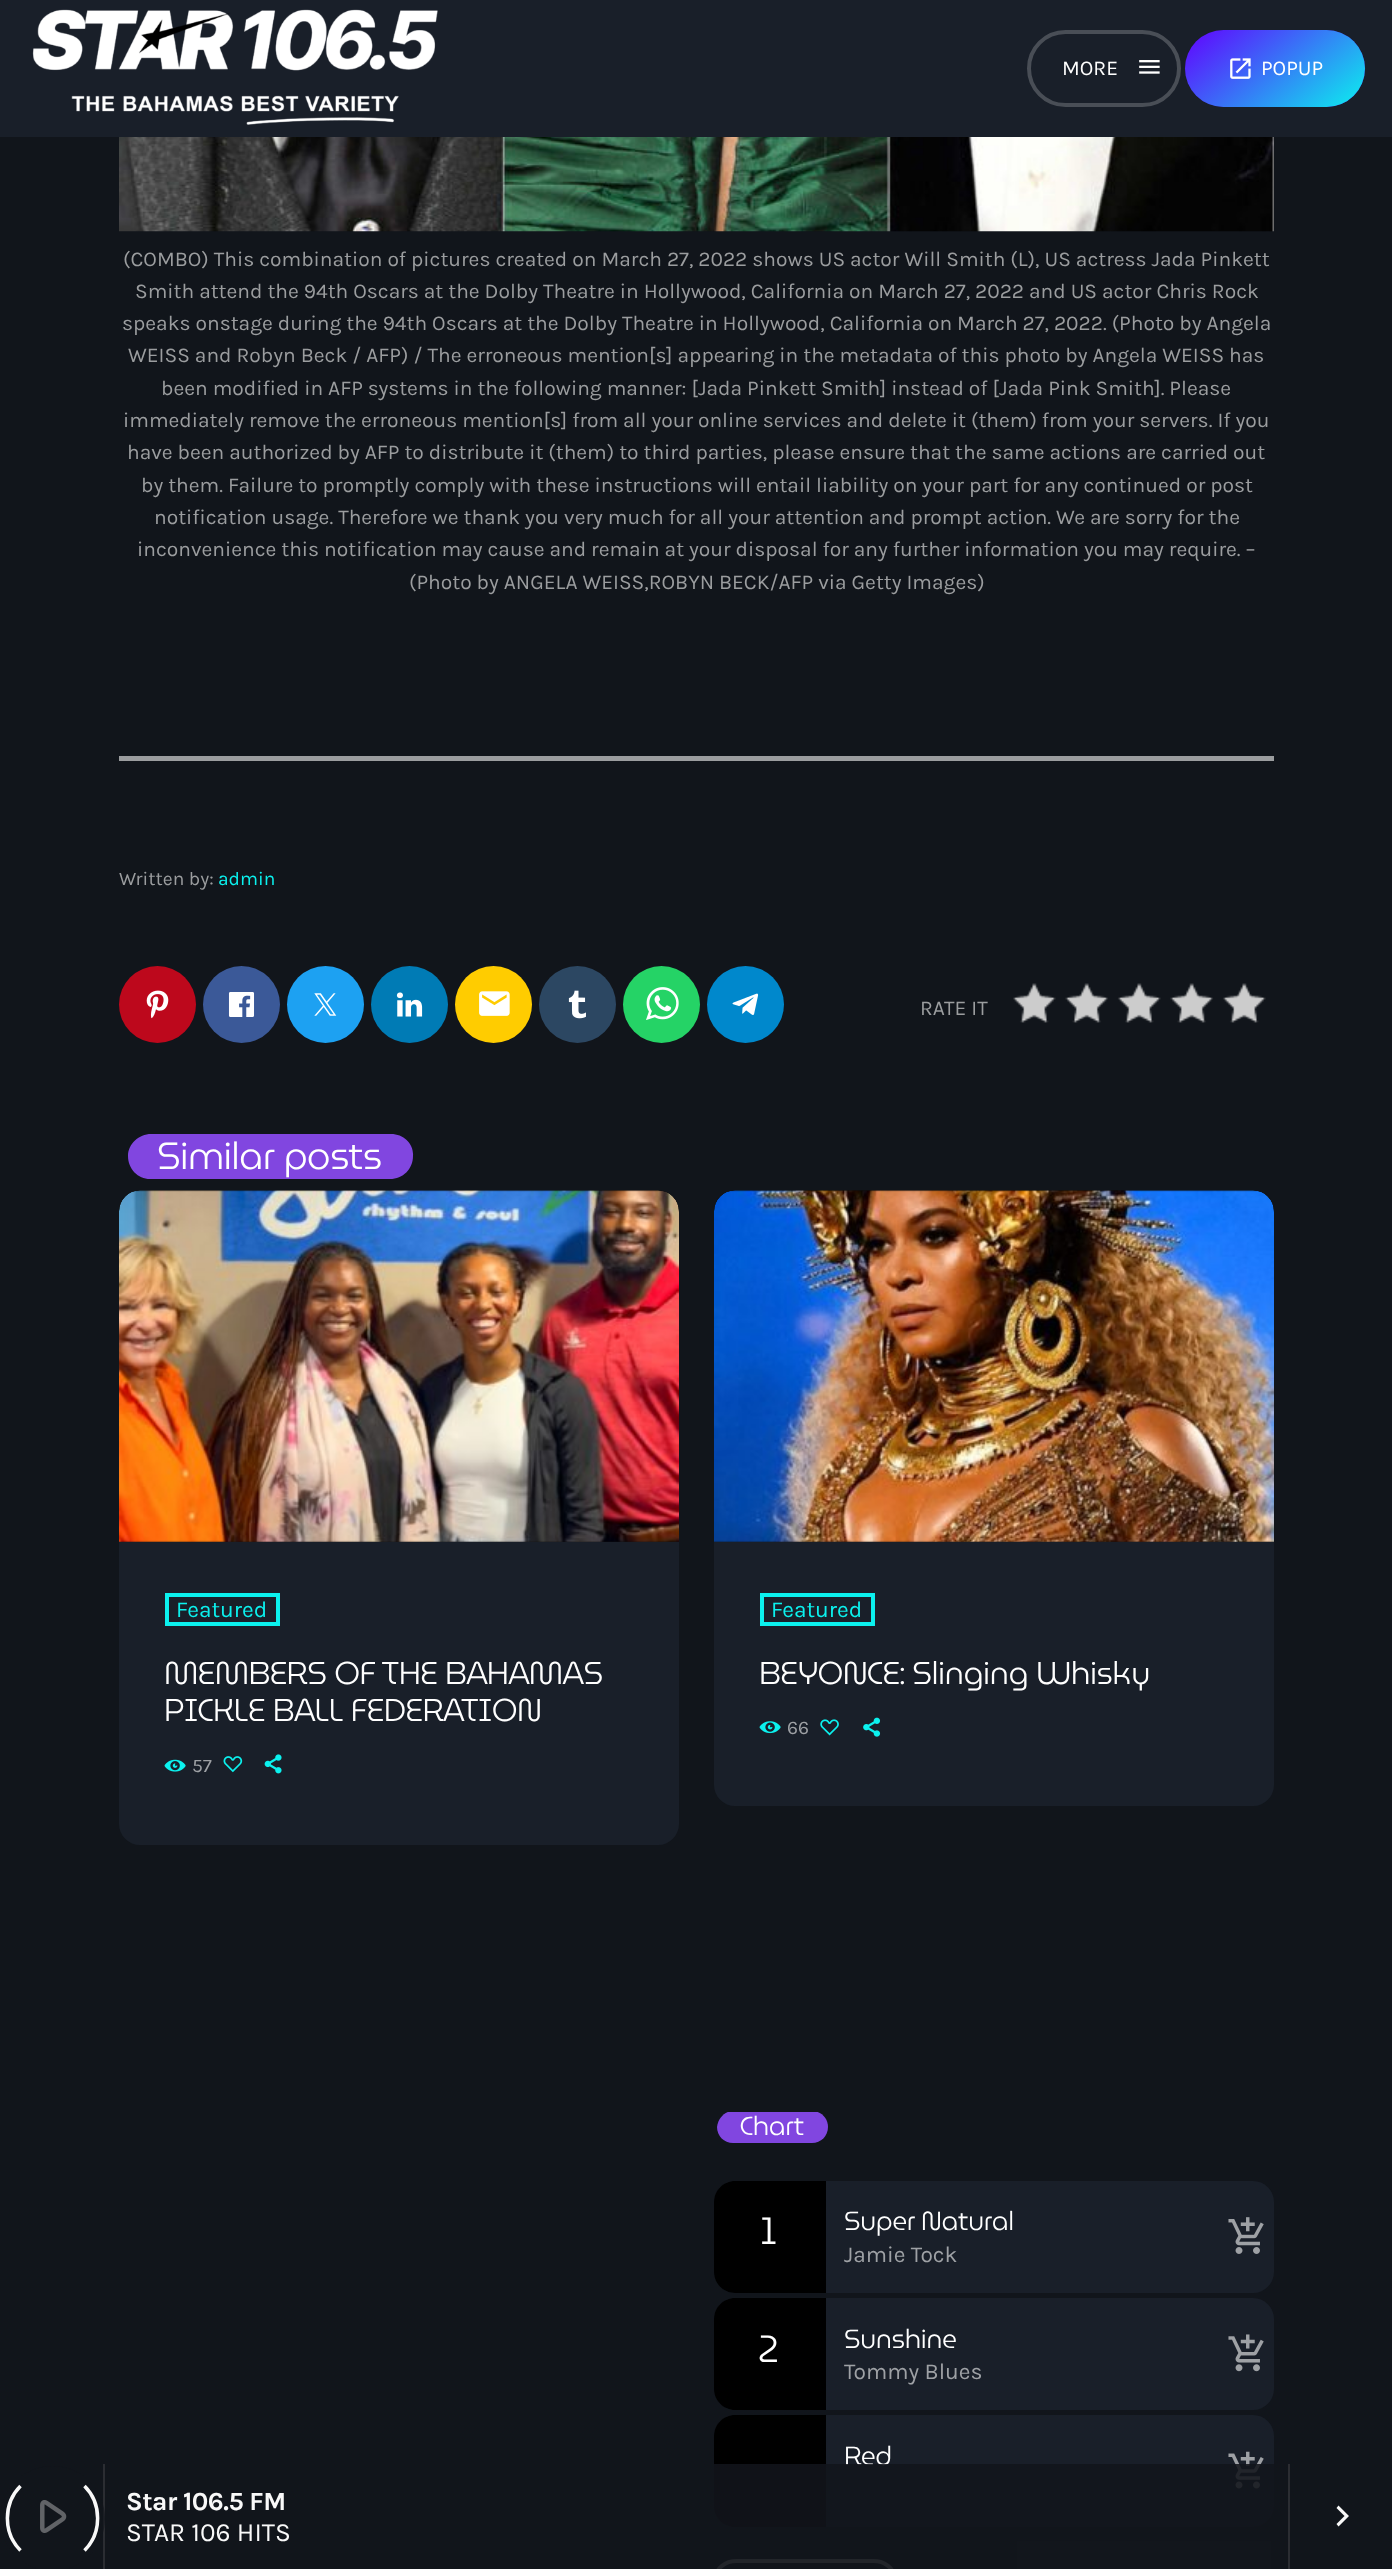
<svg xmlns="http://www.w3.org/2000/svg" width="1392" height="2569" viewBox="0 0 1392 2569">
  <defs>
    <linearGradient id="g1" gradientUnits="userSpaceOnUse" x1="1220" y1="0.9" x2="1329" y2="136"><stop offset="0" stop-color="#0bf1ee" stop-opacity="0"/><stop offset="1" stop-color="#0bf1ee"/></linearGradient>
    <clipPath id="clip1"><rect x="714" y="2112" width="116" height="32"/></clipPath>
  </defs>
  <rect width="100%" height="100%" fill="#11151b"/>
  <rect x="0" y="0" width="1392" height="137" fill="#191f29"/>
  <image x="32" y="9" width="406" height="116" href="img1.png"/>
  <rect x="1029" y="32" width="150" height="73" rx="36.5" fill="none" stroke="#494e56" stroke-width="4"/>
  <text x="1062" y="75" font-family="Karla" font-size="21" fill="#ffffff">MORE</text>
  <image x="1139" y="60" width="21" height="14" href="img2.png"/>
  <rect x="1185" y="30" width="180" height="77" rx="38.5" fill="#6200ff"/>
  <rect x="1185" y="30" width="180" height="77" rx="38.5" fill="url(#g1)"/>
  <image x="1230" y="58" width="21" height="21" href="img3.png"/>
  <text x="1261" y="75" font-family="Karla" font-size="21" fill="#ffffff">POPUP</text>
  <image x="119" y="137" width="1155" height="95" href="img4.png"/>
  <text x="123" y="266" font-family="Karla" font-size="21" fill="#9b9d9f">(COMBO) This combination of pictures created on March 27, 2022 shows US actor Will Smith (L), US actress Jada Pinkett</text>
  <text x="135" y="298" font-family="Karla" font-size="21" fill="#9b9d9f">Smith attend the 94th Oscars at the Dolby Theatre in Hollywood, California on March 27, 2022 and US actor Chris Rock</text>
  <text x="122" y="330" font-family="Karla" font-size="21" fill="#9b9d9f">speaks onstage during the 94th Oscars at the Dolby Theatre in Hollywood, California on March 27, 2022. (Photo by Angela</text>
  <text x="128" y="362" font-family="Karla" font-size="21" fill="#9b9d9f">WEISS and Robyn Beck / AFP) / The erroneous mention[s] appearing in the metadata of this photo by Angela WEISS has</text>
  <text x="161" y="395" font-family="Karla" font-size="21" fill="#9b9d9f">been modified in AFP systems in the following manner: [Jada Pinkett Smith] instead of [Jada Pink Smith]. Please</text>
  <text x="123" y="427" font-family="Karla" font-size="21" fill="#9b9d9f">immediately remove the erroneous mention[s] from all your online services and delete it (them) from your servers. If you</text>
  <text x="127" y="459" font-family="Karla" font-size="21" fill="#9b9d9f">have been authorized by AFP to distribute it (them) to third parties, please ensure that the same actions are carried out</text>
  <text x="141" y="492" font-family="Karla" font-size="21" fill="#9b9d9f">by them. Failure to promptly comply with these instructions will entail liability on your part for any continued or post</text>
  <text x="154" y="524" font-family="Karla" font-size="21" fill="#9b9d9f">notification usage. Therefore we thank you very much for all your attention and prompt action. We are sorry for the</text>
  <text x="137" y="556" font-family="Karla" font-size="21" fill="#9b9d9f">inconvenience this notification may cause and remain at your disposal for any further information you may require. –</text>
  <text x="409" y="589" font-family="Karla" font-size="21" fill="#9b9d9f">(Photo by ANGELA WEISS,ROBYN BECK/AFP via Getty Images)</text>
  <rect x="119" y="756" width="1155" height="5" fill="#9b9d9f"/>
  <text x="119" y="885" font-family="Karla" font-size="19.25" fill="#9b9d9f">Written by:</text>
  <text x="218" y="885" font-family="Karla" font-size="19.25" fill="#0bf1ee">admin</text>
  <circle cx="157.5" cy="1004.5" r="38.5" fill="#bd081c"/>
  <image x="146" y="990" width="23" height="29" href="img5.png"/>
  <circle cx="241.5" cy="1004.5" r="38.5" fill="#3b5998"/>
  <image x="228" y="992" width="27" height="25" href="img6.png"/>
  <circle cx="325.5" cy="1004.5" r="38.5" fill="#1da1f2"/>
  <image x="314" y="993" width="23" height="23" href="img7.png"/>
  <circle cx="409.5" cy="1004.5" r="38.5" fill="#007bb5"/>
  <image x="396" y="992" width="27" height="25" href="img8.png"/>
  <circle cx="493.5" cy="1004.5" r="38.5" fill="#ffcc00"/>
  <image x="479" y="991" width="31" height="25" href="img9.png"/>
  <circle cx="577.5" cy="1004.5" r="38.5" fill="#2c4762"/>
  <image x="568" y="990" width="18" height="29" href="img10.png"/>
  <circle cx="661.5" cy="1004.5" r="38.5" fill="#25d366"/>
  <image x="646" y="987" width="33" height="33" href="img11.png"/>
  <circle cx="745.5" cy="1004.5" r="38.5" fill="#0088cc"/>
  <image x="732" y="993" width="27" height="22" href="img12.png"/>
  <text x="920" y="1015" font-family="Karla" font-size="21" fill="#9b9d9f">RATE IT</text>
  <image x="1013" y="983" width="253" height="40" href="img13.png"/>
  <path d="M151 1134H391C404 1134 414 1144 413 1156C413 1169 403 1179 390 1179H150C138 1179 128 1169 128 1156C128 1144 139 1134 151 1134Z" fill="#8146e0"/>
  <text x="157" y="1169" font-family="MuseoModerno" font-size="37.75" font-weight="300" letter-spacing="-0.75" fill="#ffffff">Similar posts</text>
  <rect x="119" y="1190" width="560" height="655" rx="21" fill="#191f29"/>
  <path d="M140 1190H658C669.5 1190 679 1199.5 679 1211V1542H119V1211C119 1199.5 128.5 1190 140 1190Z" fill="#111111"/>
  <image x="119" y="1190" width="560" height="352" href="img14.png"/>
  <rect x="167" y="1595" width="111" height="29" fill="none" stroke="#0bf1ee" stroke-width="4"/>
  <text x="176" y="1617" font-family="Karla" font-size="22.75" fill="#0bf1ee">Featured</text>
  <text x="164" y="1684" font-family="MuseoModerno" font-size="31.5" font-weight="300" letter-spacing="-0.6" fill="#ffffff">MEMBERS OF THE BAHAMAS</text>
  <text x="164" y="1721" font-family="MuseoModerno" font-size="31.5" font-weight="300" letter-spacing="-0.6" fill="#ffffff">PICKLE BALL FEDERATION</text>
  <image x="164" y="1759" width="22" height="13" href="img15.png"/>
  <text x="192" y="1772" font-family="Karla" font-size="19.25" fill="#9ea1a5">57</text>
  <image x="223" y="1756" width="20" height="17" href="img16.png"/>
  <image x="264" y="1754" width="18" height="20" href="img17.png"/>
  <rect x="714" y="1190" width="560" height="616" rx="21" fill="#191f29"/>
  <path d="M735 1190H1253C1264.5 1190 1274 1199.5 1274 1211V1542H714V1211C714 1199.5 723.5 1190 735 1190Z" fill="#111111"/>
  <image x="714" y="1190" width="560" height="352" href="img18.png"/>
  <rect x="762" y="1595" width="111" height="29" fill="none" stroke="#0bf1ee" stroke-width="4"/>
  <text x="771" y="1617" font-family="Karla" font-size="22.75" fill="#0bf1ee">Featured</text>
  <text x="759" y="1684" font-family="MuseoModerno" font-size="31.5" font-weight="300" letter-spacing="-0.6" fill="#ffffff">BEYONCE: Slinging Whisky</text>
  <image x="759" y="1721" width="22" height="13" href="img19.png"/>
  <text x="787" y="1734" font-family="Karla" font-size="19.25" fill="#9ea1a5">66</text>
  <image x="820" y="1719" width="19" height="17" href="img20.png"/>
  <image x="863" y="1717" width="18" height="20" href="img21.png"/>
  <g clip-path="url(#clip1)">
    <path d="M733 2111H812C821 2111 828 2118 828 2127C828 2136 821 2143 812 2143H733C724 2143 717 2136 717 2127C718 2118 725 2111 733 2111Z" fill="#8146e0"/>
  </g>
  <text x="740" y="2135" font-family="MuseoModerno" font-size="26.25" font-weight="300" letter-spacing="-0.5" fill="#ffffff">Chart</text>
  <rect x="714" y="2181" width="560" height="112" rx="21" fill="#191f29"/>
  <path d="M735 2181H826V2293H735C723.5 2293 714 2283.5 714 2272V2202C714 2190.5 723.5 2181 735 2181Z" fill="#000000"/>
  <text x="760" y="2244" font-family="MuseoModerno" font-size="38" font-weight="300" letter-spacing="2" fill="#ffffff">1</text>
  <text x="844" y="2230" font-family="MuseoModerno" font-size="26.25" font-weight="300" letter-spacing="-0.5" fill="#ffffff">Super Natural</text>
  <text x="844" y="2262" font-family="Karla" font-size="22.75" fill="#9ea1a5">Jamie Tock</text>
  <image x="1228" y="2217" width="36" height="37" href="img22.png"/>
  <rect x="714" y="2298" width="560" height="112" rx="21" fill="#191f29"/>
  <path d="M735 2298H826V2410H735C723.5 2410 714 2400.5 714 2389V2319C714 2307.5 723.5 2298 735 2298Z" fill="#000000"/>
  <text x="758" y="2362" font-family="MuseoModerno" font-size="38" font-weight="300" letter-spacing="2" fill="#ffffff">2</text>
  <text x="844" y="2348" font-family="MuseoModerno" font-size="26.25" font-weight="300" letter-spacing="-0.5" fill="#ffffff">Sunshine</text>
  <text x="844" y="2379" font-family="Karla" font-size="22.75" fill="#9ea1a5">Tommy Blues</text>
  <image x="1228" y="2334" width="36" height="38" href="img23.png"/>
  <rect x="714" y="2415" width="560" height="112" rx="21" fill="#191f29"/>
  <path d="M735 2415H826V2527H735C723.5 2527 714 2517.5 714 2506V2436C714 2424.5 723.5 2415 735 2415Z" fill="#000000"/>
  <text x="844" y="2465" font-family="MuseoModerno" font-size="26.25" font-weight="300" letter-spacing="-0.5" fill="#ffffff">Red</text>
  <image x="1228" y="2451" width="36" height="38" href="img24.png"/>
  <rect x="716" y="2561" width="178" height="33" rx="20.5" fill="none" stroke="#9b9d9f" stroke-width="4"/>
  <rect x="714" y="2464" width="560" height="105" fill="#12161c" fill-opacity="0.66"/>
  <rect x="714" y="2464" width="560" height="105" fill="#12161c" fill-opacity="0.66"/>
  <rect x="103" y="2464" width="2" height="105" fill="#2b2d32"/>
  <image x="40" y="2500" width="27" height="33" href="img25.png"/>
  <circle cx="52.5" cy="2518.5" r="52.5" fill="#12161c" fill-opacity="0.66"/>
  <path d="M84.5 2486C102 2503.5 102 2533 84.5 2550.5" fill="none" stroke="#f9f9f9" stroke-width="3.5"/>
  <path d="M20.5 2550.5C3 2533 3 2503.5 20.5 2486" fill="none" stroke="#f9f9f9" stroke-width="3.5"/>
  <text x="126" y="2510" font-family="Karla" font-size="26.25" font-weight="bold" letter-spacing="-0.5" fill="#f9f9f9">Star 106.5 FM</text>
  <text x="126" y="2541" font-family="Karla" font-size="26.25" fill="#f9f9f9">STAR 106 HITS</text>
  <rect x="1288" y="2464" width="2" height="105" fill="#2b2d32"/>
  <path d="M1336.5 2524L1344.5 2516L1336.5 2508L1338.5 2505.5L1349 2516L1338.5 2526.5Z" fill="#f9f9f9"/>
</svg>
